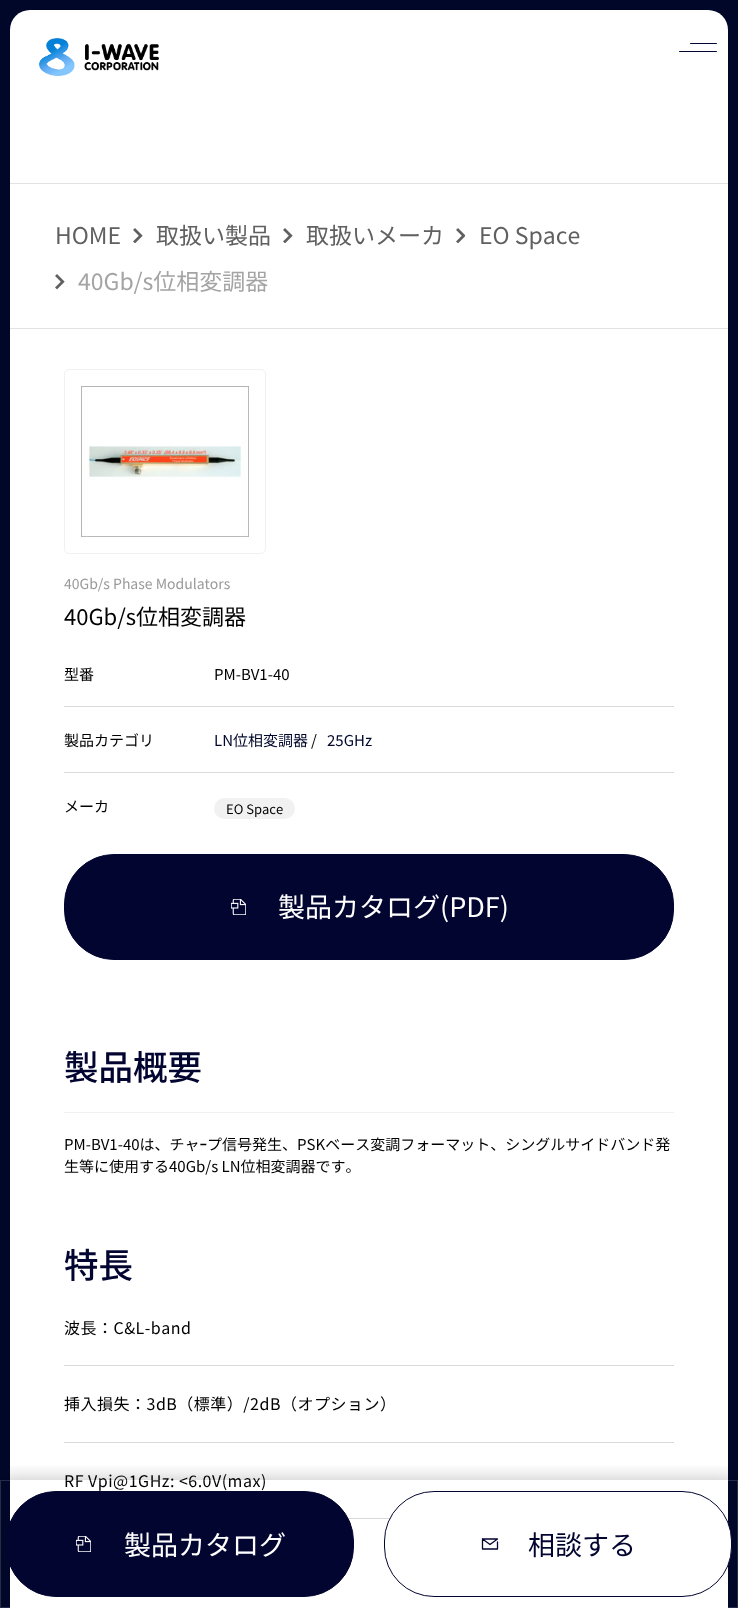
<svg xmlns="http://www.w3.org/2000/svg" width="738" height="1608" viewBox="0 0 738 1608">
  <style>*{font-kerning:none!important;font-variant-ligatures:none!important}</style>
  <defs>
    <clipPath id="clip1"><rect x="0" y="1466" width="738" height="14"/></clipPath>
    <filter id="blur1" x="-50%" y="-200%" width="200%" height="500%"><feGaussianBlur stdDeviation="10"/></filter>
  </defs>
  <rect width="100%" height="100%" fill="#000729"/>
  <rect x="10" y="10" width="718" height="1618" rx="20" fill="#ffffff"/>
  <image x="39" y="38" width="120" height="38" href="img1.png"/>
  <rect x="690" y="43" width="27" height="1" rx="0.5" fill="#030531"/>
  <rect x="679" y="51" width="38" height="1" rx="0.5" fill="#030531"/>
  <rect x="10" y="183" width="718" height="1" fill="#e2e2e2"/>
  <rect x="10" y="328" width="718" height="1" fill="#e2e2e2"/>
  <text x="55" y="244" font-family="Noto Sans JP" font-size="23" fill="#606060">HOME</text>
  <image x="133" y="228" width="10" height="15" href="img2.png"/>
  <text x="156" y="244" font-family="Noto Sans JP" font-size="23" fill="#606060">取扱い製品</text>
  <image x="283" y="228" width="10" height="15" href="img2.png"/>
  <text x="306" y="244" font-family="Noto Sans JP" font-size="23" fill="#606060">取扱いメーカ</text>
  <image x="456" y="228" width="9" height="15" href="img3.png"/>
  <text x="479" y="244" font-family="Noto Sans JP" font-size="23" fill="#606060">EO Space</text>
  <image x="55" y="274" width="10" height="16" href="img4.png"/>
  <text x="78" y="290" font-family="Noto Sans JP" font-size="23" fill="#a4a4a4">40Gb/s位相変調器</text>
  <rect x="64.5" y="369.5" width="201" height="184" rx="4.5" fill="none" stroke="#f1f1f1"/>
  <image x="81" y="386" width="168" height="151" href="img5.png"/>
  <text x="64" y="589" font-family="Noto Sans JP" font-size="14" fill="#999999">40Gb/s Phase Modulators</text>
  <text x="64" y="625" font-family="Noto Sans JP" font-size="22" fill="#000000">40Gb/s位相変調器</text>
  <text x="64" y="680" font-family="Noto Sans JP" font-size="15" fill="#000000">型番</text>
  <text x="214" y="680" font-family="Noto Sans JP" font-size="15" fill="#000000">PM-BV1-40</text>
  <rect x="64" y="706" width="610" height="1" fill="#d9d9d9"/>
  <text x="64" y="746" font-family="Noto Sans JP" font-size="15" fill="#000000">製品カテゴリ</text>
  <text x="214" y="746" font-family="Noto Sans JP" font-size="15" fill="#000729">LN位相変調器</text>
  <text x="311" y="746" font-family="Noto Sans JP" font-size="15" fill="#000000">/</text>
  <text x="327" y="746" font-family="Noto Sans JP" font-size="15" fill="#000729">25GHz</text>
  <rect x="64" y="772" width="610" height="1" fill="#d9d9d9"/>
  <text x="64" y="812" font-family="Noto Sans JP" font-size="15" fill="#000000">メーカ</text>
  <rect x="214" y="798" width="81" height="21" rx="10.5" fill="#f1f1f1"/>
  <text x="226" y="814" font-family="Noto Sans JP" font-size="13" fill="#000000">EO Space</text>
  <rect x="64.5" y="854.5" width="609" height="105" rx="49.5" fill="#030531" stroke="#030531"/>
  <image x="231" y="899" width="15" height="16" href="img6.png"/>
  <text x="278" y="917" font-family="Noto Sans JP" font-size="27" fill="#ffffff">製品カタログ(PDF)</text>
  <rect x="64" y="1112" width="610" height="1" fill="#f1f1f1"/>
  <text x="64" y="1080" font-family="Noto Sans JP" font-size="34.5" font-weight="500" fill="#030531">製品概要</text>
  <text x="64" y="1150" font-family="Noto Sans JP" font-size="15" fill="#000000">PM-BV1-40は、チャｰプ信号発生、PSKベース変調フォーマット、シングルサイドバンド発</text>
  <text x="64" y="1172" font-family="Noto Sans JP" font-size="15" fill="#000000">生等に使用する40Gb/s LN位相変調器です。</text>
  <text x="64" y="1278" font-family="Noto Sans JP" font-size="34.5" font-weight="500" fill="#030531">特長</text>
  <text x="64" y="1334" font-family="Noto Sans JP" font-size="16" letter-spacing="0.5" fill="#000000">波長：C&amp;L-band</text>
  <rect x="64" y="1365" width="610" height="1" fill="#d9d9d9"/>
  <text x="64" y="1410" font-family="Noto Sans JP" font-size="16" letter-spacing="0.5" fill="#000000">挿入損失：3dB（標準）/2dB（オプション）</text>
  <rect x="64" y="1442" width="610" height="1" fill="#d9d9d9"/>
  <text x="64" y="1487" font-family="Noto Sans JP" font-size="16" letter-spacing="0.5" fill="#000000">RF Vpi@1GHz: &lt;6.0V(max)</text>
  <rect x="348" y="1518" width="42" height="1" fill="#d9d9d9"/>
  <g clip-path="url(#clip1)">
    <rect x="0" y="1480" width="738" height="128" fill="#000000" fill-opacity="0.25" filter="url(#blur1)"/>
  </g>
  <rect x="0.5" y="1480.5" width="737" height="127" fill="none" stroke="#ffffff" stroke-opacity="0.15"/>
  <rect x="6.5" y="1491.5" width="347" height="105" rx="49.5" fill="#030531" stroke="#030531"/>
  <image x="76" y="1536" width="15" height="16" href="img6.png"/>
  <text x="124" y="1555" font-family="Noto Sans JP" font-size="27" fill="#ffffff">製品カタログ</text>
  <rect x="384.5" y="1491.5" width="347" height="105" rx="49.5" fill="#ffffff" stroke="#030531"/>
  <path d="M497.5 1542V1549H482.5V1539H497.5L490 1544.5L482.5 1539" fill="none" stroke="#030531" stroke-width="1.3" stroke-linecap="round" stroke-linejoin="round"/>
  <text x="528" y="1555" font-family="Noto Sans JP" font-size="27" fill="#030531">相談する</text>
</svg>
